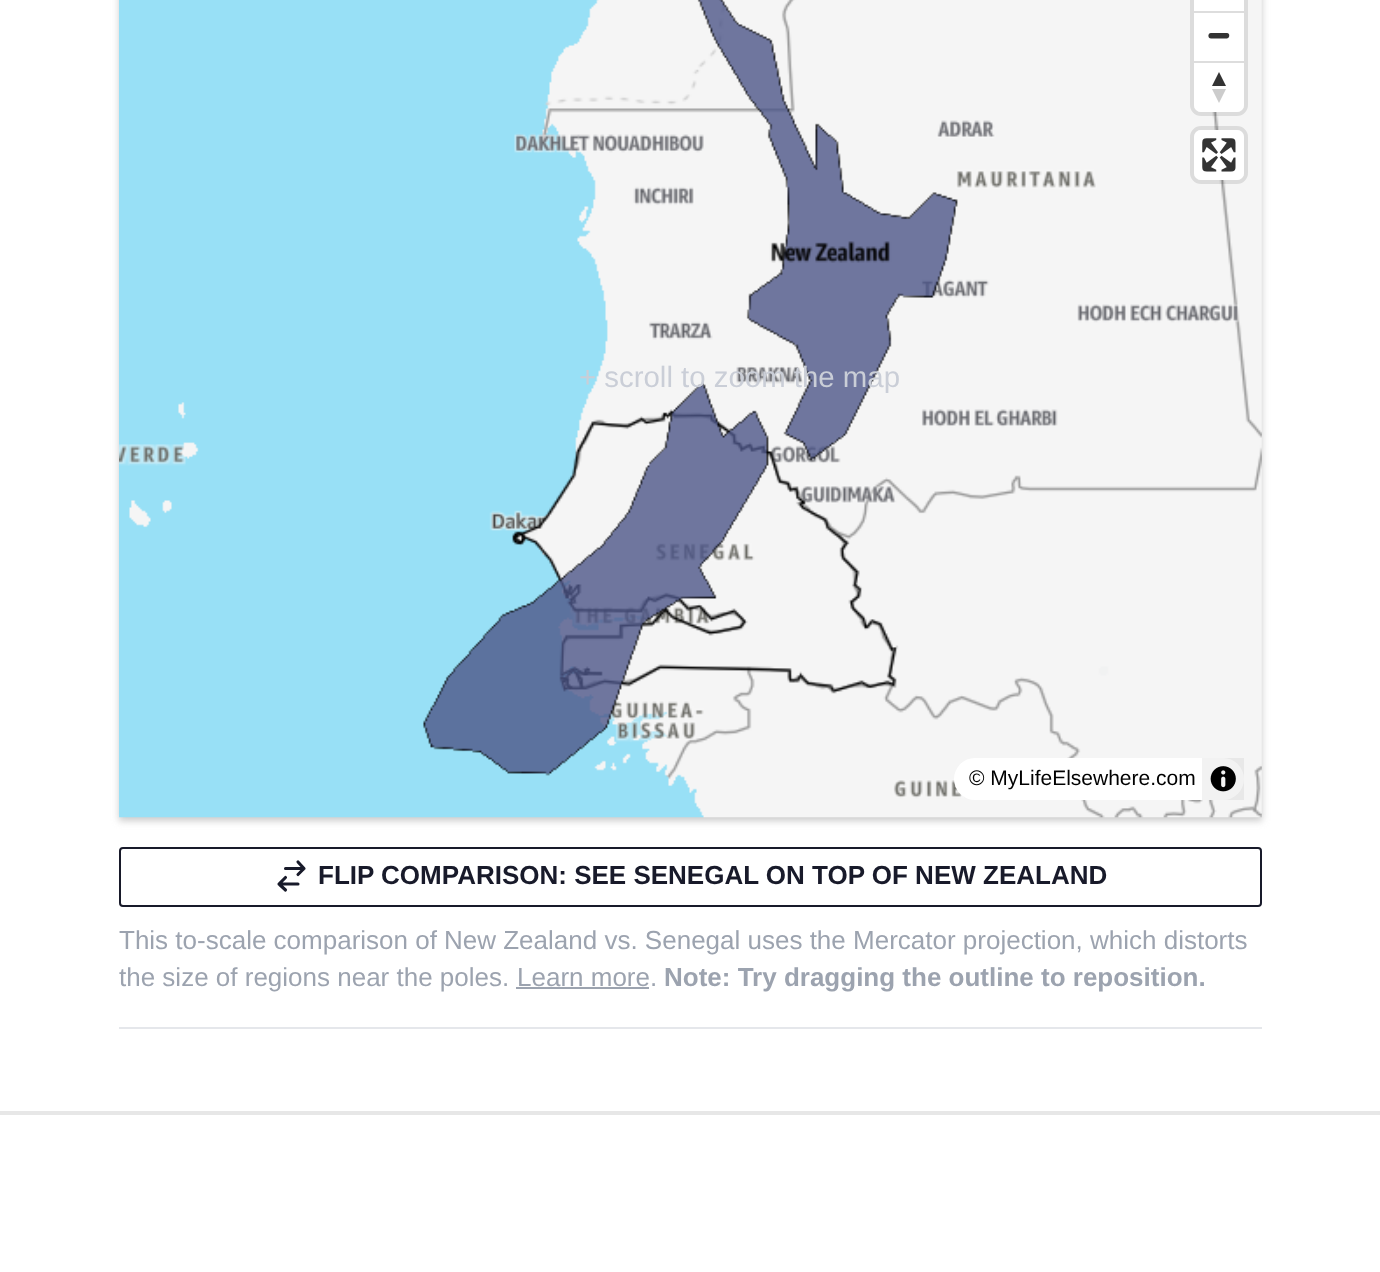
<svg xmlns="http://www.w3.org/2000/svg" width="1380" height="1272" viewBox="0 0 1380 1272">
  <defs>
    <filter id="blur1" x="-50%" y="-200%" width="200%" height="500%"><feGaussianBlur stdDeviation="3.5"/></filter>
  </defs>
  <rect width="100%" height="100%" fill="#ffffff"/>
  <rect x="119" y="-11" width="1143" height="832" fill="#cccccc" filter="url(#blur1)"/>
  <image x="119" y="0" width="1143" height="818" href="img1.png"/>
  <text x="579" y="387" font-family="Liberation Sans" font-size="29.4" fill="#caced7">+ scroll to zoom the map</text>
  <rect x="1192" y="-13" width="54" height="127" rx="9" fill="none" stroke="#000000" stroke-opacity="0.1" stroke-width="4"/>
  <rect x="1194" y="-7" width="50" height="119" rx="7" fill="#ffffff"/>
  <rect x="1194" y="11" width="50" height="2" fill="#dddddd"/>
  <path d="M1211 33C1207.5 33 1207.5 38.5 1211 38.5H1227C1230 38 1230 33 1227 33Z" fill="#333333"/>
  <rect x="1194" y="61" width="50" height="2" fill="#dddddd"/>
  <path d="M1212 86L1219 72L1226 86Z" fill="#333333"/>
  <path d="M1212 89L1219 103L1226 89Z" fill="#cccccc"/>
  <rect x="1192" y="128" width="54" height="54" rx="9" fill="none" stroke="#000000" stroke-opacity="0.1" stroke-width="4"/>
  <rect x="1194" y="130" width="50" height="50" rx="7" fill="#ffffff"/>
  <image x="1202" y="138" width="34" height="34" href="img2.png"/>
  <rect x="954" y="758" width="290" height="42" rx="21" fill="#ffffff"/>
  <text x="969" y="785" font-family="Liberation Sans" font-size="21" fill="#000000">© MyLifeElsewhere.com</text>
  <rect x="1202" y="758" width="42" height="42" fill="#000000" fill-opacity="0.05"/>
  <image x="1210" y="766" width="26" height="26" href="img3.png"/>
  <rect x="120" y="848" width="1141" height="58" rx="3" fill="none" stroke="#181a2a" stroke-width="2"/>
  <path d="M285.5 868.5H304M304 868.5L298 862M304 868.5L298 874.5M298 884H279M279 884L285.5 890M279 884L285.5 877.5" fill="none" stroke="#181a2a" stroke-width="3.1" stroke-linecap="round" stroke-linejoin="round"/>
  <text x="318" y="884" font-family="Liberation Sans" font-size="26" font-weight="bold" fill="#181a2a">FLIP COMPARISON: SEE SENEGAL ON TOP OF NEW ZEALAND</text>
  <text x="119" y="949" font-family="Liberation Sans" font-size="26" fill="#9ca3af">This to-scale comparison of</text>
  <text x="444" y="949" font-family="Liberation Sans" font-size="26" fill="#9ca3af">New Zealand vs. Senegal uses the Mercator projection, which distorts</text>
  <text x="119" y="986" font-family="Liberation Sans" font-size="26" fill="#9ca3af">the size of regions near the poles.</text>
  <text x="517" y="986" font-family="Liberation Sans" font-size="26" fill="#9ca3af">Learn more.</text>
  <rect x="516" y="987" width="133" height="2" fill="#9ca3af"/>
  <text x="664" y="986" font-family="Liberation Sans" font-size="26" font-weight="bold" fill="#9ca3af">Note: Try dragging the outline to reposition.</text>
  <rect x="119" y="1027" width="1143" height="2" fill="#e5e7eb"/>
  <rect x="0" y="1111" width="1380" height="4" fill="#e7e7e7"/>
</svg>
